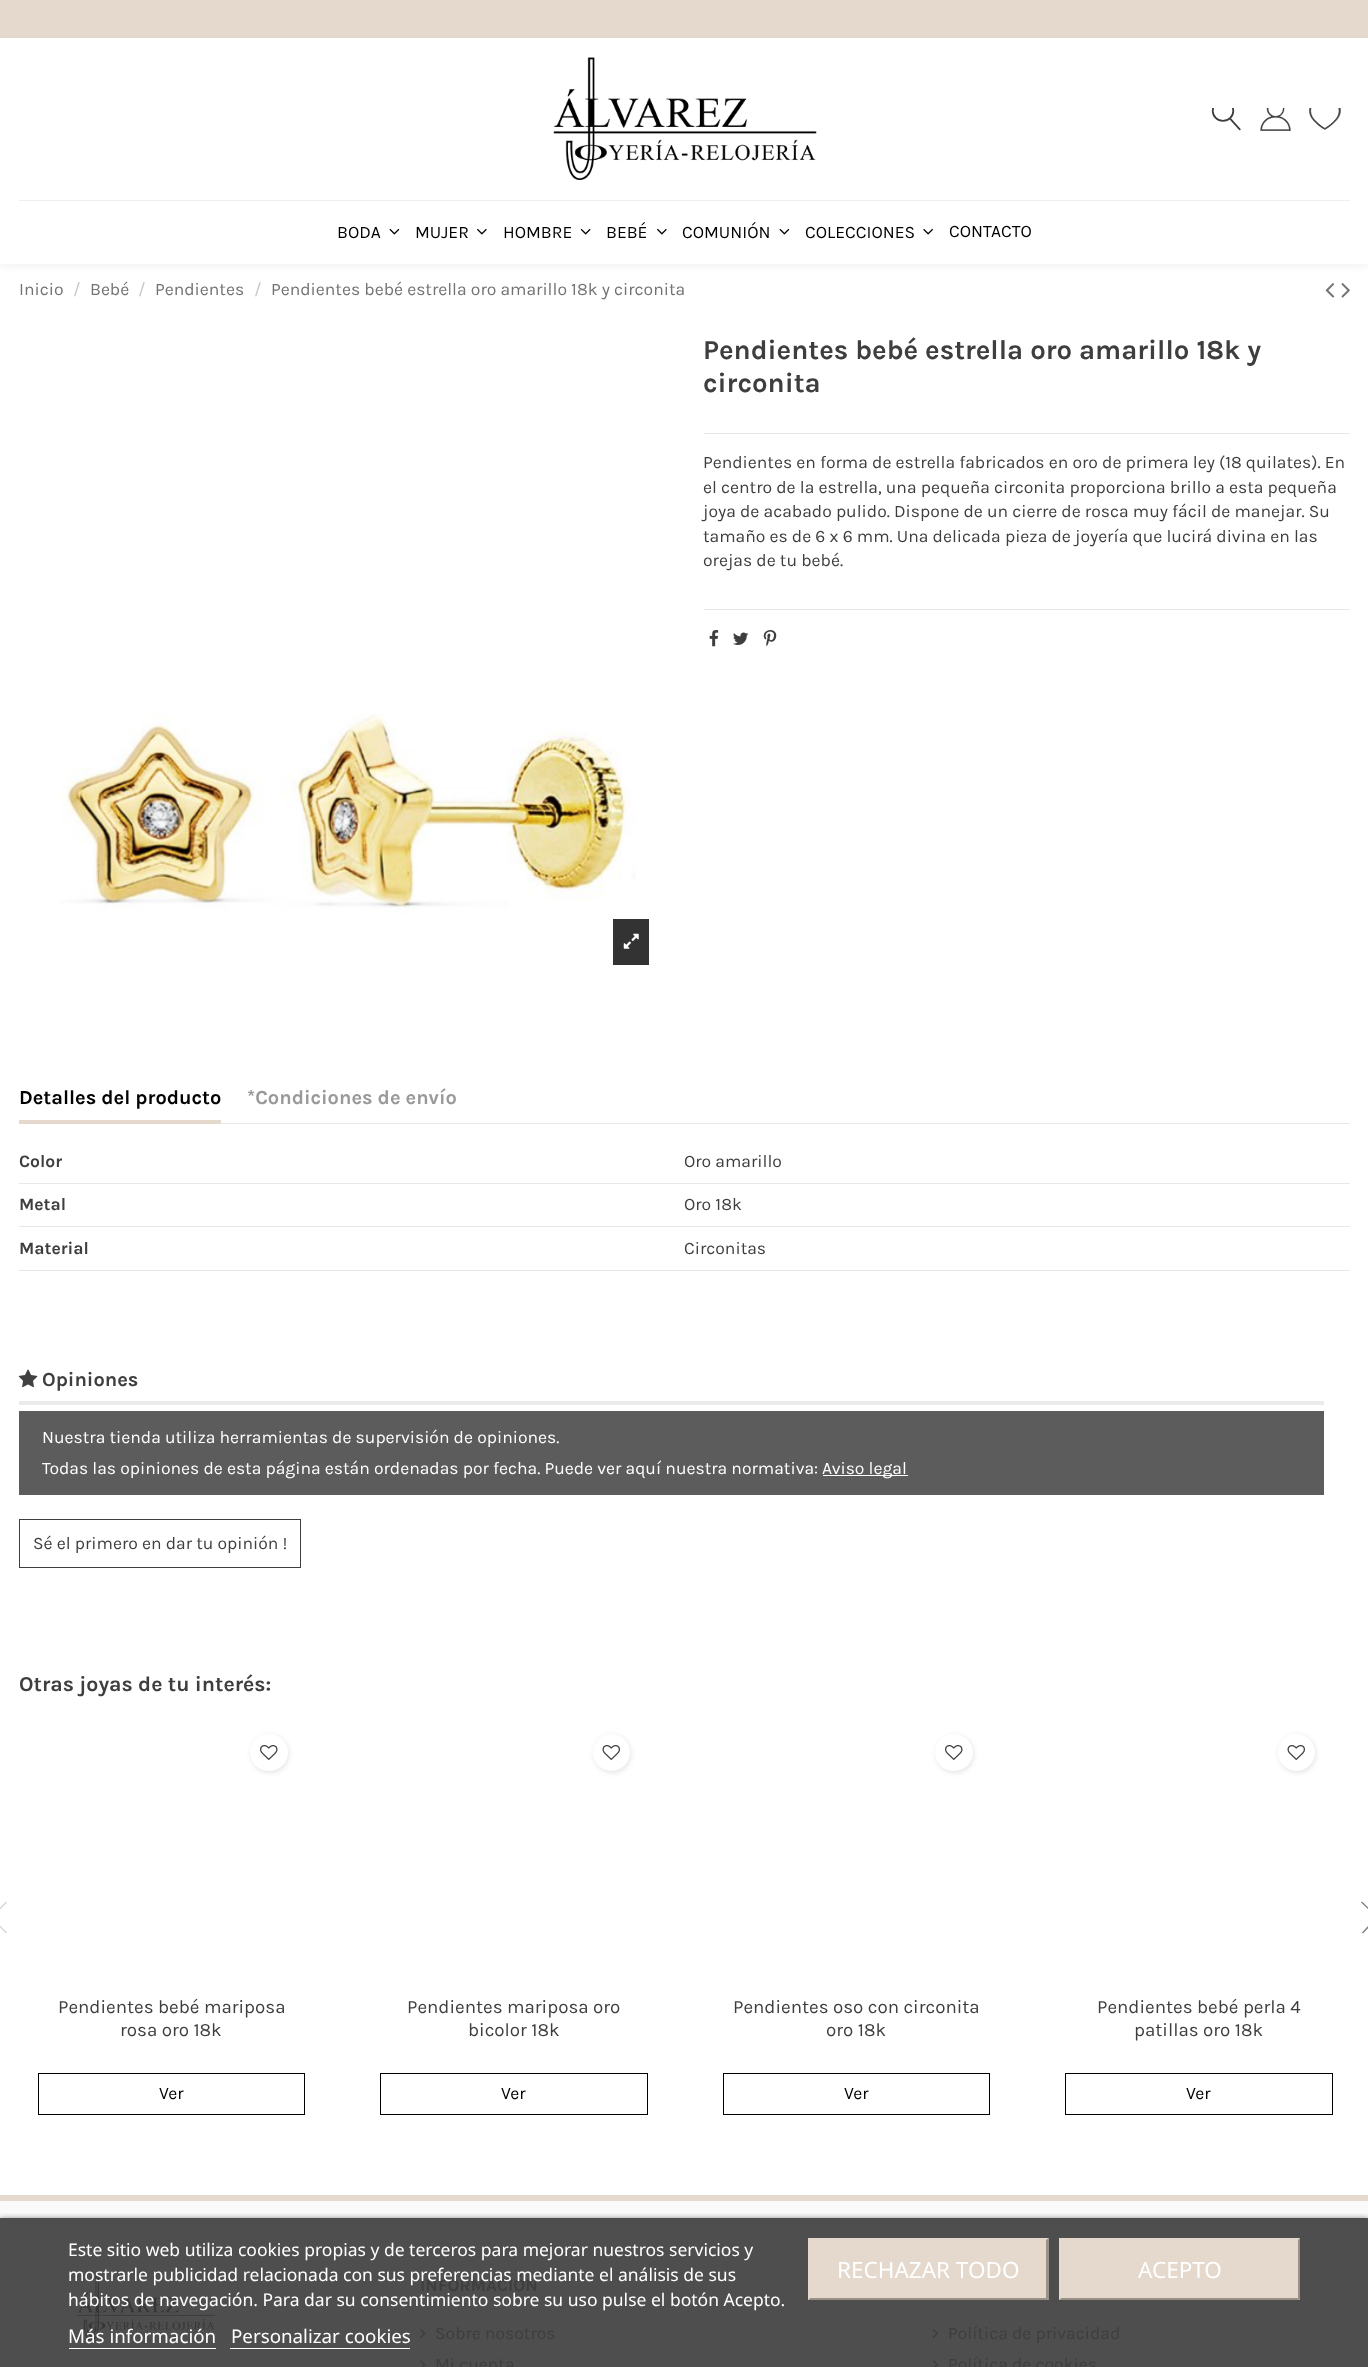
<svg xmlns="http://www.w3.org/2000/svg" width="1368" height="2367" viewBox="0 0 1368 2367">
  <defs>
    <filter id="blur1" x="-50%" y="-200%" width="200%" height="500%"><feGaussianBlur stdDeviation="6"/></filter>
    <filter id="blur2" x="-50%" y="-200%" width="200%" height="500%"><feGaussianBlur stdDeviation="2.5"/></filter>
    <clipPath id="clip1"><rect x="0" y="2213" width="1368" height="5"/></clipPath>
    <filter id="blur3" x="-50%" y="-200%" width="200%" height="500%"><feGaussianBlur stdDeviation="3"/></filter>
  </defs>
  <rect width="100%" height="100%" fill="#ffffff"/>
  <rect x="0" y="-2" width="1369" height="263" fill="#3d3939" fill-opacity="0.17" filter="url(#blur1)"/>
  <rect x="0" y="38" width="1368" height="226" fill="#ffffff"/>
  <rect x="0" y="0" width="1368" height="38" fill="#e5d8cc"/>
  <image x="553" y="57" width="264" height="123" href="img1.png"/>
  <image x="1211" y="108" width="30" height="23" href="img2.png"/>
  <image x="1260" y="108" width="31" height="23" href="img3.png"/>
  <image x="1309" y="108" width="32" height="22" href="img4.png"/>
  <rect x="19" y="200" width="1331" height="1" fill="#efefef"/>
  <text x="337" y="238" font-family="Karla" font-size="17.5" fill="#000000">BODA</text>
  <image x="389" y="228" width="11" height="7" href="img5.png"/>
  <text x="415" y="238" font-family="Karla" font-size="17.5" fill="#000000">MUJER</text>
  <image x="477" y="228" width="10" height="7" href="img6.png"/>
  <text x="503" y="238" font-family="Karla" font-size="17.5" fill="#000000">HOMBRE</text>
  <image x="580" y="228" width="11" height="7" href="img7.png"/>
  <text x="606" y="238" font-family="Karla" font-size="17.5" fill="#000000">BEBÉ</text>
  <image x="657" y="228" width="10" height="7" href="img6.png"/>
  <text x="682" y="238" font-family="Karla" font-size="17.5" fill="#000000">COMUNIÓN</text>
  <image x="779" y="228" width="11" height="7" href="img5.png"/>
  <text x="805" y="238" font-family="Karla" font-size="17.5" fill="#000000">COLECCIONES</text>
  <image x="923" y="228" width="10" height="7" href="img8.png"/>
  <text x="949" y="237" font-family="Karla" font-size="17.5" fill="#000000">CONTACTO</text>
  <text x="19" y="295" font-family="Karla" font-size="17.5" fill="#727272">Inicio</text>
  <text x="73" y="295" font-family="Karla" font-size="17.5" fill="#c7c7c7">/</text>
  <text x="90" y="295" font-family="Karla" font-size="17.5" fill="#727272">Bebé</text>
  <text x="138" y="295" font-family="Karla" font-size="17.5" fill="#c7c7c7">/</text>
  <text x="155" y="295" font-family="Karla" font-size="17.5" fill="#727272">Pendientes</text>
  <text x="254" y="295" font-family="Karla" font-size="17.5" fill="#c7c7c7">/</text>
  <text x="271" y="295" font-family="Karla" font-size="17.5" fill="#727272">Pendientes bebé estrella oro amarillo 18k y circonita</text>
  <image x="1325" y="283" width="10" height="15" href="img9.png"/>
  <image x="1341" y="283" width="9" height="15" href="img10.png"/>
  <rect x="704" y="433" width="646" height="1" fill="#e8e8e8"/>
  <text x="703" y="359" font-family="Karla" font-size="27.5" font-weight="bold" fill="#3e3e3e">Pendientes bebé estrella oro amarillo 18k y</text>
  <text x="703" y="392" font-family="Karla" font-size="27.5" font-weight="bold" fill="#3e3e3e">circonita</text>
  <text x="703" y="468" font-family="Karla" font-size="17.5" fill="#3e3e3e">Pendientes en forma de estrella fabricados en oro de primera ley (18 quilates). En</text>
  <text x="703" y="493" font-family="Karla" font-size="17.5" fill="#3e3e3e">el centro de la estrella, una pequeña circonita proporciona brillo a esta pequeña</text>
  <text x="703" y="517" font-family="Karla" font-size="17.5" fill="#3e3e3e">joya de acabado pulido. Dispone de un cierre de rosca muy fácil de manejar. Su</text>
  <text x="703" y="542" font-family="Karla" font-size="17.5" fill="#3e3e3e">tamaño es de 6 x 6 mm. Una delicada pieza de joyería que lucirá divina en las</text>
  <text x="703" y="566" font-family="Karla" font-size="17.5" fill="#3e3e3e">orejas de tu bebé.</text>
  <rect x="704" y="609" width="646" height="1" fill="#e8e8e8"/>
  <image x="709" y="630" width="10" height="17" href="img11.png"/>
  <image x="733" y="632" width="16" height="13" href="img12.png"/>
  <image x="763" y="630" width="14" height="17" href="img13.png"/>
  <image x="60" y="714" width="576" height="201" href="img14.png"/>
  <rect x="613" y="919" width="36" height="46" fill="#333333"/>
  <image x="623" y="933" width="16" height="16" href="img15.png"/>
  <rect x="221" y="1123" width="1129" height="1" fill="#e8e8e8"/>
  <rect x="19" y="1120" width="202" height="4" fill="#e5d8cc"/>
  <text x="19" y="1104" font-family="Karla" font-size="20" font-weight="bold" fill="#000000">Detalles del producto</text>
  <text x="247" y="1104" font-family="Karla" font-size="20" font-weight="bold" fill="#999999">*Condiciones de envío</text>
  <rect x="19" y="1183" width="1331" height="1" fill="#e8e8e8"/>
  <text x="19" y="1167" font-family="Karla" font-size="17.5" font-weight="bold" fill="#3e3e3e">Color</text>
  <text x="684" y="1167" font-family="Karla" font-size="17.5" fill="#3e3e3e">Oro amarillo</text>
  <rect x="19" y="1226" width="1331" height="1" fill="#e8e8e8"/>
  <text x="19" y="1210" font-family="Karla" font-size="17.5" font-weight="bold" fill="#3e3e3e">Metal</text>
  <text x="684" y="1210" font-family="Karla" font-size="17.5" fill="#3e3e3e">Oro 18k</text>
  <rect x="19" y="1270" width="1331" height="1" fill="#e8e8e8"/>
  <text x="19" y="1254" font-family="Karla" font-size="17.5" font-weight="bold" fill="#3e3e3e">Material</text>
  <text x="684" y="1254" font-family="Karla" font-size="17.5" fill="#3e3e3e">Circonitas</text>
  <rect x="19" y="1401" width="1305" height="4" fill="#ebebeb"/>
  <image x="18" y="1369" width="20" height="19" href="img16.png"/>
  <text x="42" y="1386" font-family="Karla" font-size="20" font-weight="bold" fill="#3e3e3e">Opiniones</text>
  <rect x="19" y="1411" width="1305" height="84" fill="#5c5c5c"/>
  <text x="42" y="1443" font-family="Karla" font-size="17.5" fill="#ffffff">Nuestra tienda utiliza herramientas de supervisión de opiniones.</text>
  <text x="42" y="1474" font-family="Karla" font-size="17.5" fill="#ffffff">Todas las opiniones de esta página están ordenadas por fecha. Puede ver aquí nuestra normativa:</text>
  <rect x="823" y="1475" width="85" height="1" fill="#ffffff"/>
  <text x="822" y="1474" font-family="Karla" font-size="17.5" fill="#ffffff">Aviso legal</text>
  <rect x="19.5" y="1519.5" width="281" height="48" fill="none" stroke="#3e3e3e"/>
  <text x="33" y="1549" font-family="Karla" font-size="17.5" fill="#3e3e3e">Sé el primero en dar tu opinión !</text>
  <text x="19" y="1691" font-family="Karla" font-size="21.25" font-weight="bold" fill="#3e3e3e">Otras joyas de tu interés:</text>
  <path d="M-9.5 1917.5L6 1901.5L7 1902.5L-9 1918.5ZM-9.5 1917.5L-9 1916.5L7 1932.5L6 1933.5Z" fill="#d5d5d5"/>
  <path d="M1362 1901.5L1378.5 1917L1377.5 1918L1361 1902.5ZM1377.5 1916L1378.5 1917L1363 1933.5L1362 1932.5Z" fill="#808080"/>
  <rect x="251" y="1735" width="38" height="38" rx="19" fill="#000000" fill-opacity="0.1" filter="url(#blur2)"/>
  <rect x="250" y="1734" width="38" height="37" rx="18.5" fill="#ffffff"/>
  <image x="260" y="1745" width="18" height="15" href="img17.png"/>
  <text x="58" y="2013" font-family="Karla" font-size="18.75" fill="#3e3e3e">Pendientes bebé mariposa</text>
  <text x="120" y="2036" font-family="Karla" font-size="18.75" fill="#3e3e3e">rosa oro 18k</text>
  <rect x="38.5" y="2073.5" width="266" height="41" fill="none" stroke="#000000"/>
  <text x="159" y="2099" font-family="Karla" font-size="17.5" fill="#000000">Ver</text>
  <rect x="594" y="1735" width="37" height="38" rx="18.5" fill="#000000" fill-opacity="0.1" filter="url(#blur2)"/>
  <circle cx="611.5" cy="1752.5" r="18.5" fill="#ffffff"/>
  <image x="602" y="1745" width="18" height="15" href="img18.png"/>
  <text x="407" y="2013" font-family="Karla" font-size="18.75" fill="#3e3e3e">Pendientes mariposa oro</text>
  <text x="468" y="2036" font-family="Karla" font-size="18.75" fill="#3e3e3e">bicolor 18k</text>
  <rect x="380.5" y="2073.5" width="267" height="41" fill="none" stroke="#000000"/>
  <text x="501" y="2099" font-family="Karla" font-size="17.5" fill="#000000">Ver</text>
  <rect x="936" y="1735" width="38" height="38" rx="19" fill="#000000" fill-opacity="0.1" filter="url(#blur2)"/>
  <rect x="935" y="1734" width="38" height="37" rx="18.5" fill="#ffffff"/>
  <image x="945" y="1745" width="18" height="15" href="img17.png"/>
  <text x="733" y="2013" font-family="Karla" font-size="18.75" fill="#3e3e3e">Pendientes oso con circonita</text>
  <text x="826" y="2036" font-family="Karla" font-size="18.75" fill="#3e3e3e">oro 18k</text>
  <rect x="723.5" y="2073.5" width="266" height="41" fill="none" stroke="#000000"/>
  <text x="844" y="2099" font-family="Karla" font-size="17.5" fill="#000000">Ver</text>
  <rect x="1279" y="1735" width="37" height="38" rx="18.5" fill="#000000" fill-opacity="0.1" filter="url(#blur2)"/>
  <circle cx="1296.5" cy="1752.5" r="18.5" fill="#ffffff"/>
  <image x="1287" y="1745" width="18" height="15" href="img18.png"/>
  <text x="1097" y="2013" font-family="Karla" font-size="18.75" fill="#3e3e3e">Pendientes bebé perla 4</text>
  <text x="1134" y="2036" font-family="Karla" font-size="18.75" fill="#3e3e3e">patillas oro 18k</text>
  <rect x="1065.5" y="2073.5" width="267" height="41" fill="none" stroke="#000000"/>
  <text x="1186" y="2099" font-family="Karla" font-size="17.5" fill="#000000">Ver</text>
  <rect x="0" y="2201" width="1368" height="17" fill="#fafafa"/>
  <rect x="0" y="2218" width="1368" height="149" fill="#4e4e4e"/>
  <rect x="0" y="2195" width="1368" height="6" fill="#e5d8cc"/>
  <image x="77" y="2276" width="138" height="64" href="img19.png"/>
  <image x="420" y="2329" width="6" height="9" href="img20.png"/>
  <image x="420" y="2360" width="6" height="7" href="img21.png"/>
  <image x="932" y="2329" width="6" height="9" href="img22.png"/>
  <image x="932" y="2360" width="6" height="7" href="img23.png"/>
  <g clip-path="url(#clip1)">
    <rect x="0" y="2219" width="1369" height="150" fill="#707070" filter="url(#blur3)"/>
  </g>
  <text x="68" y="2256" font-family="Noto Sans" font-size="17.5" fill="#ffffff">Este sitio web utiliza cookies propias y de terceros para mejorar nuestros servicios y</text>
  <text x="420" y="2291" font-family="Karla" font-size="17.5" font-weight="bold" fill="#3e3e3e">INFORMACIÓN</text>
  <text x="68" y="2281" font-family="Noto Sans" font-size="17.5" fill="#ffffff">mostrarle publicidad relacionada con sus preferencias mediante el análisis de sus</text>
  <text x="68" y="2306" font-family="Noto Sans" font-size="17.5" fill="#ffffff">hábitos de navegación. Para dar su consentimiento sobre su uso pulse el botón Acepto.</text>
  <text x="68" y="2343" font-family="Noto Sans" font-size="18.75" fill="#ffffff">Más información</text>
  <rect x="69" y="2348" width="147" height="1" fill="#ffffff"/>
  <text x="231" y="2343" font-family="Noto Sans" font-size="18.75" fill="#ffffff">Personalizar cookies</text>
  <rect x="230" y="2348" width="180" height="1" fill="#ffffff"/>
  <rect x="808" y="2238" width="241" height="62" fill="#e5d8cc"/>
  <path d="M1049 2238V2300L1046 2298V2240Z" fill="#999088"/>
  <path d="M1049 2300H808L810 2298H1046Z" fill="#999088"/>
  <path d="M808 2300V2238L810 2240V2298Z" fill="#e5d8cc"/>
  <text x="837" y="2278" font-family="Noto Sans" font-size="22.5" fill="#ffffff">RECHAZAR TODO</text>
  <rect x="1059" y="2238" width="241" height="62" fill="#e5d8cc"/>
  <path d="M1300 2238V2300L1298 2298V2240Z" fill="#999088"/>
  <path d="M1300 2300H1059L1061 2298H1298Z" fill="#999088"/>
  <path d="M1059 2300V2238L1061 2240V2298Z" fill="#e5d8cc"/>
  <text x="1138" y="2278" font-family="Noto Sans" font-size="22.5" fill="#ffffff">ACEPTO</text>
  <text x="435" y="2339" font-family="Karla" font-size="17.5" fill="#3e3e3e">Sobre nosotros</text>
  <text x="435" y="2370" font-family="Karla" font-size="17.5" fill="#3e3e3e">Mi cuenta</text>
  <text x="948" y="2339" font-family="Karla" font-size="17.5" fill="#3e3e3e">Política de privacidad</text>
  <text x="948" y="2370" font-family="Karla" font-size="17.5" fill="#3e3e3e">Política de cookies</text>
</svg>
